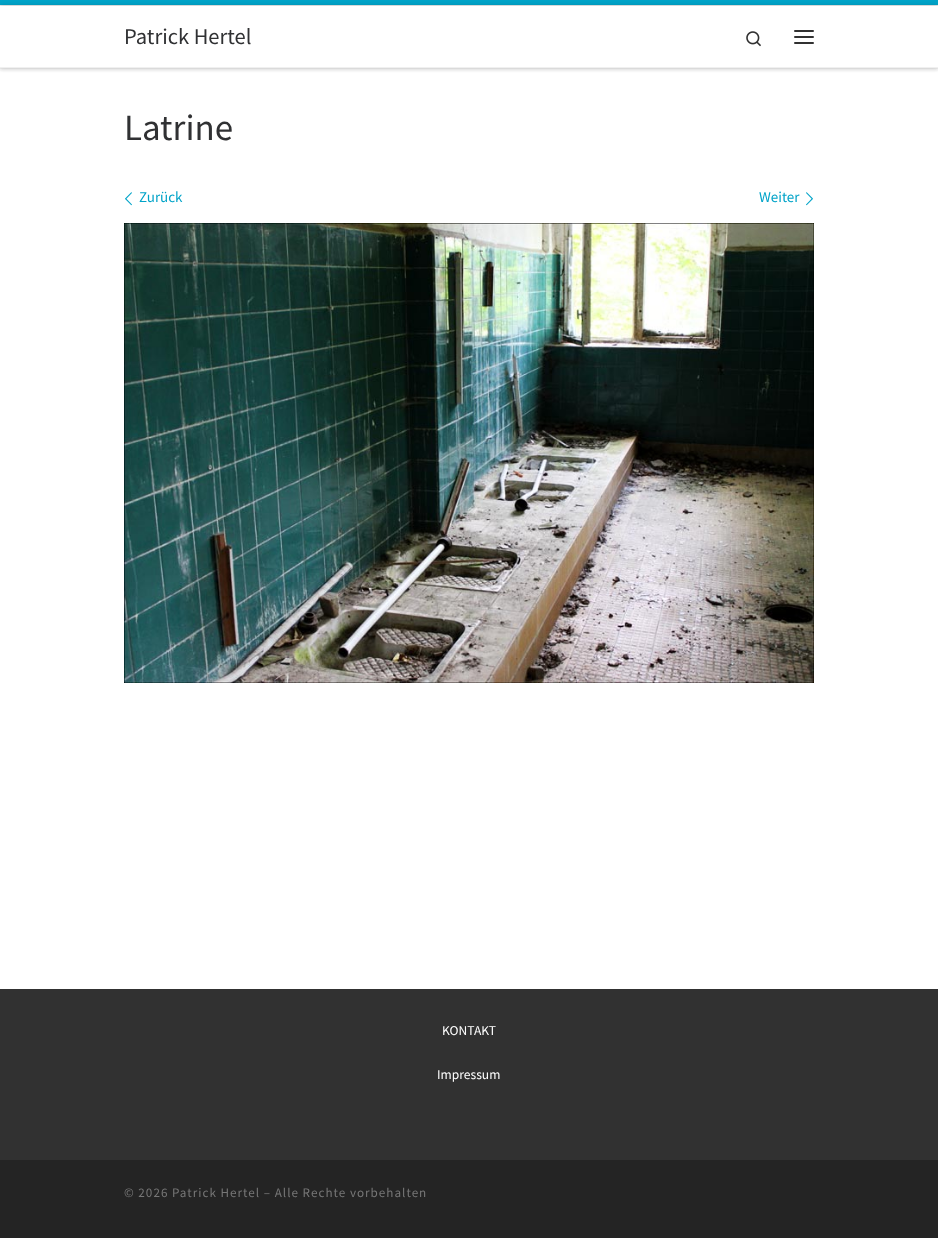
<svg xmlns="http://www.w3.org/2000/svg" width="938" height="1238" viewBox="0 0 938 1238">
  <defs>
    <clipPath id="clip1"><rect x="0" y="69" width="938" height="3"/></clipPath>
    <filter id="blur1" x="-50%" y="-200%" width="200%" height="500%"><feGaussianBlur stdDeviation="1"/></filter>
    <clipPath id="clip2"><path d="M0 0H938V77H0ZM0 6H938V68H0Z" clip-rule="evenodd"/></clipPath>
    <filter id="blur2" x="-50%" y="-200%" width="200%" height="500%"><feGaussianBlur stdDeviation="2.5"/></filter>
  </defs>
  <rect width="100%" height="100%" fill="#ffffff"/>
  <g clip-path="url(#clip1)">
    <rect x="0" y="2" width="938" height="69" fill="#666666" fill-opacity="0.08" filter="url(#blur1)"/>
  </g>
  <rect x="0" y="0" width="938" height="5" fill="#00a3c8"/>
  <rect x="0" y="5" width="938" height="1" fill="#ececec"/>
  <rect x="0" y="68" width="938" height="1" fill="#efefef"/>
  <g clip-path="url(#clip2)">
    <rect x="0" y="6" width="938" height="62" fill="#000000" fill-opacity="0.2" filter="url(#blur2)"/>
  </g>
  <text x="124" y="44" font-family="Source Sans Pro" font-size="22.5" fill="#303133">Patrick Hertel</text>
  <image x="746" y="31" width="15" height="16" href="img1.png"/>
  <rect x="794" y="30" width="20" height="2" rx="1" fill="#313131"/>
  <rect x="794" y="36" width="20" height="2" rx="1" fill="#313131"/>
  <rect x="794" y="42" width="20" height="2" rx="1" fill="#313131"/>
  <rect x="0" y="67" width="938" height="1" fill="#f0f0f0"/>
  <text x="124" y="140" font-family="Source Sans Pro" font-size="37" fill="#303133">Latrine</text>
  <image x="125" y="192" width="7" height="14" href="img2.png"/>
  <text x="139" y="202" font-family="Source Sans Pro" font-size="15" fill="#00a3c8">Zurück</text>
  <text x="759" y="202" font-family="Source Sans Pro" font-size="15" fill="#00a3c8">Weiter</text>
  <image x="806" y="192" width="7" height="14" href="img3.png"/>
  <image x="124" y="223" width="690" height="460" href="img4.png"/>
  <rect x="0" y="989" width="938" height="171" fill="#313131"/>
  <text x="442" y="1035" font-family="Source Sans Pro" font-size="13.5" fill="#ffffff">KONTAKT</text>
  <text x="437" y="1079" font-family="Source Sans Pro" font-size="13.5" fill="#ffffff">Impressum</text>
  <rect x="0" y="1160" width="938" height="78" fill="#242424"/>
  <text x="124" y="1197" font-family="Source Sans Pro" font-size="13.1" letter-spacing="1" fill="#777777">© 2026 Patrick Hertel – Alle Rechte vorbehalten</text>
</svg>
